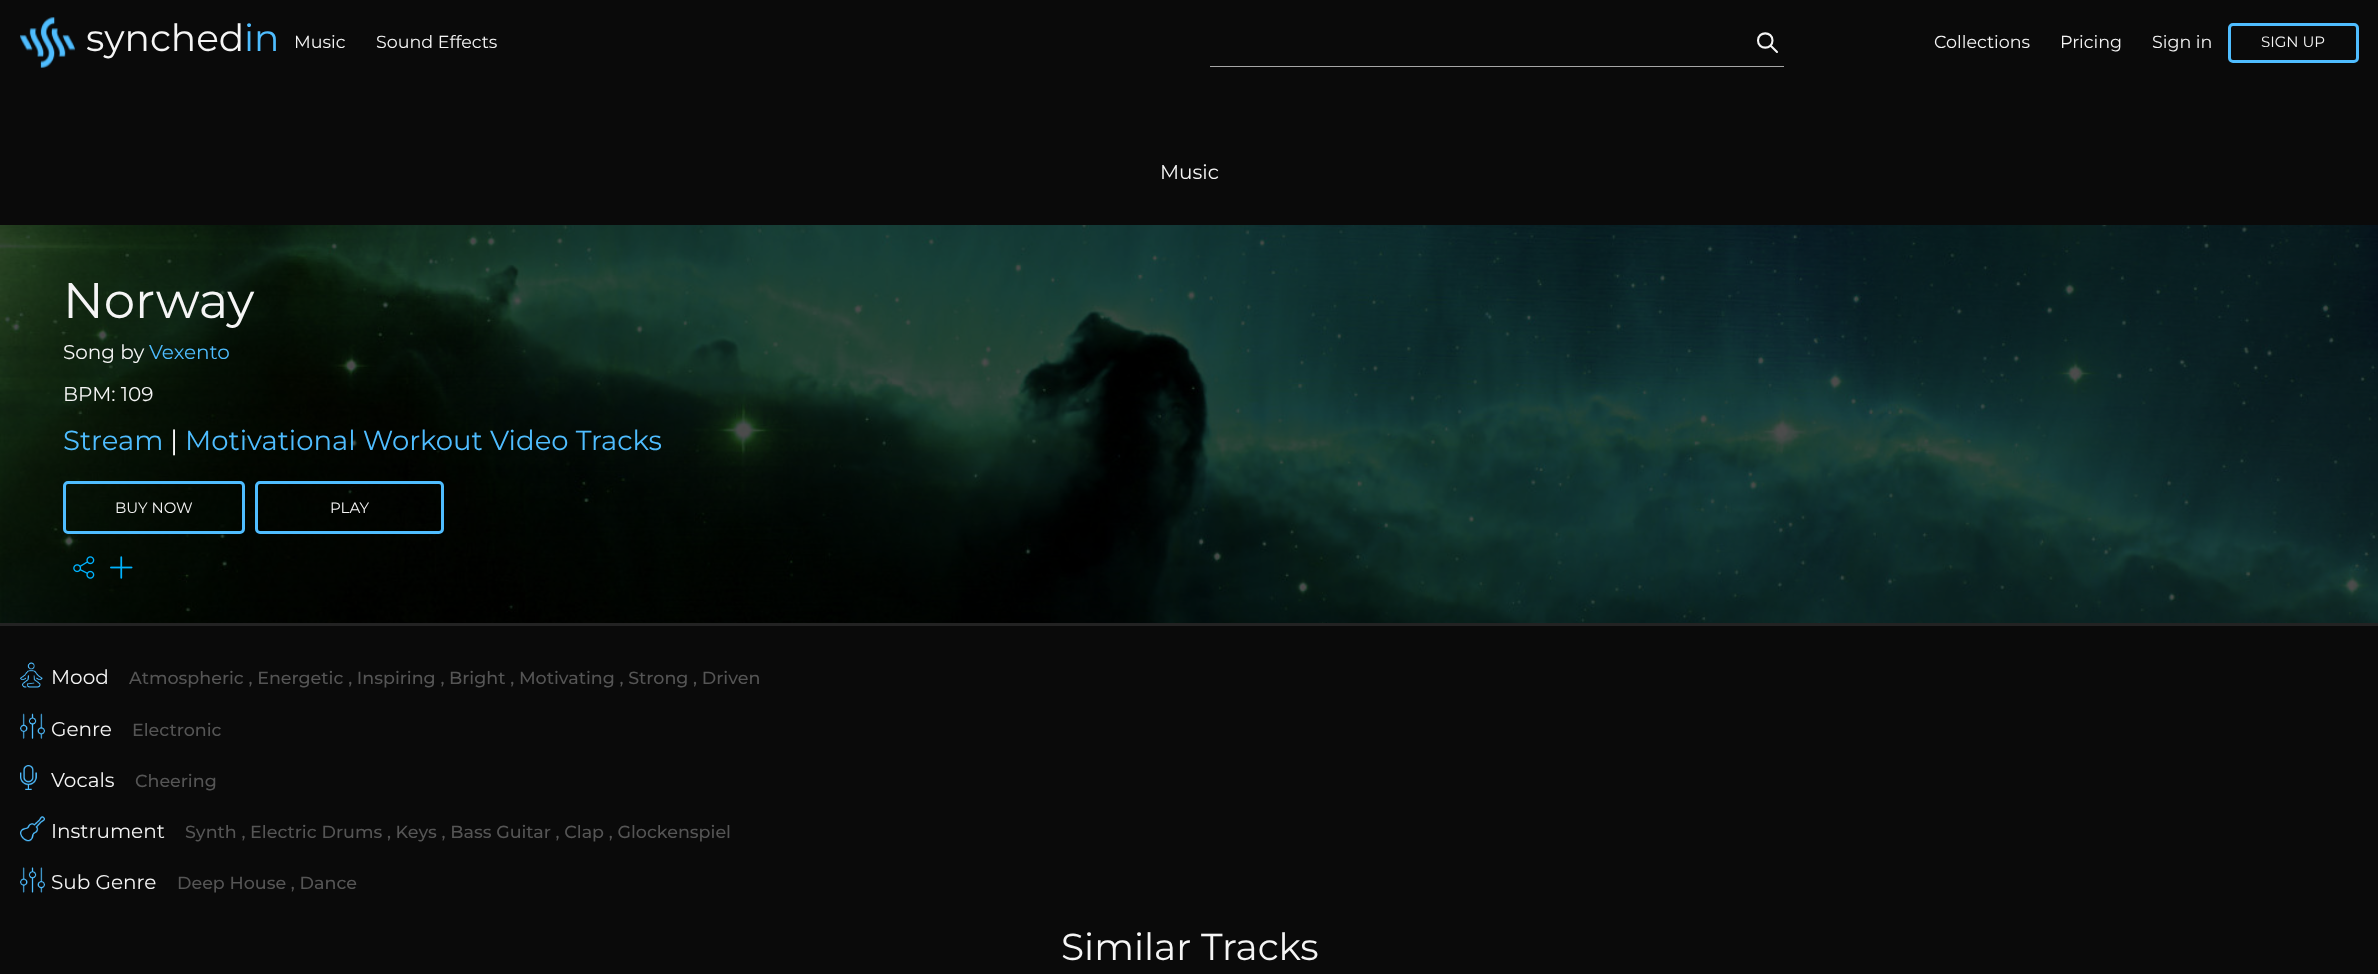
<svg xmlns="http://www.w3.org/2000/svg" width="2378" height="974" viewBox="0 0 2378 974">
  <rect width="100%" height="100%" fill="#0a0a0a"/>
  <image x="20" y="17" width="56" height="51" href="img1.png"/>
  <text x="86" y="51" font-family="Montserrat" font-size="37.5" fill="#f5f5f5">synched</text>
  <text x="244" y="51" font-family="Montserrat" font-size="37.5" fill="#4fbdff">in</text>
  <text x="294" y="48" font-family="Montserrat" font-size="17.5" fill="#f5f5f5">Music</text>
  <text x="376" y="48" font-family="Montserrat" font-size="17.5" fill="#f5f5f5">Sound Effects</text>
  <rect x="1210" y="66" width="574" height="1" fill="#a6a6a6"/>
  <path d="M1777 52L1770.5 45.5M1772.5 40.5C1772.5 50 1758 50 1758 40.5C1758 31 1772.5 31 1772.5 40.5Z" fill="none" stroke="#f5f5f5" stroke-width="2.1" stroke-linecap="round" stroke-linejoin="round"/>
  <text x="1934" y="48" font-family="Montserrat" font-size="17.5" fill="#f5f5f5">Collections</text>
  <text x="2060" y="48" font-family="Montserrat" font-size="17.5" fill="#f5f5f5">Pricing</text>
  <text x="2152" y="48" font-family="Montserrat" font-size="17.5" fill="#f5f5f5">Sign in</text>
  <rect x="2229.5" y="24.5" width="128" height="37" rx="3.5" fill="none" stroke="#4fbdff" stroke-width="3"/>
  <text x="2261" y="47" font-family="Montserrat" font-size="15" fill="#f5f5f5">SIGN UP</text>
  <text x="1160" y="179" font-family="Montserrat" font-size="20" fill="#f5f5f5">Music</text>
  <image x="0" y="225" width="2378" height="398" href="img2.png"/>
  <rect x="0" y="623" width="2378" height="3" fill="#232323"/>
  <text x="63" y="318" font-family="Montserrat" font-size="50" fill="#f5f5f5">Norway</text>
  <text x="63" y="359" font-family="Montserrat" font-size="20" fill="#f5f5f5">Song by</text>
  <text x="149" y="359" font-family="Montserrat" font-size="20" fill="#4fbdff">Vexento</text>
  <text x="63" y="401" font-family="Montserrat" font-size="20" fill="#f5f5f5">BPM: 109</text>
  <text x="63" y="450" font-family="Montserrat" font-size="27.5" fill="#4fbdff">Stream</text>
  <text x="170" y="450" font-family="Montserrat" font-size="27.5" fill="#ffffff">|</text>
  <text x="185" y="450" font-family="Montserrat" font-size="27.5" fill="#4fbdff">Motivational Workout Video Tracks</text>
  <rect x="64.5" y="482.5" width="179" height="50" rx="3.5" fill="none" stroke="#4fbdff" stroke-width="3"/>
  <text x="115" y="513" font-family="Montserrat" font-size="15" fill="#f5f5f5">BUY NOW</text>
  <rect x="256.5" y="482.5" width="186" height="50" rx="3.5" fill="none" stroke="#4fbdff" stroke-width="3"/>
  <text x="330" y="513" font-family="Montserrat" font-size="15" fill="#f5f5f5">PLAY</text>
  <image x="73" y="556" width="22" height="23" href="img3.png"/>
  <image x="110" y="556" width="23" height="23" href="img4.png"/>
  <image x="20" y="662" width="23" height="26" href="img5.png"/>
  <text x="51" y="684" font-family="Montserrat" font-size="20" fill="#f5f5f5">Mood</text>
  <text x="129" y="684" font-family="Montserrat" font-size="17.5" font-weight="500" fill="#555555">Atmospheric , Energetic , Inspiring , Bright , Motivating , Strong , Driven</text>
  <image x="20" y="713" width="25" height="26" href="img6.png"/>
  <text x="51" y="736" font-family="Montserrat" font-size="20" fill="#f5f5f5">Genre</text>
  <text x="132" y="736" font-family="Montserrat" font-size="17.5" font-weight="500" fill="#555555">Electronic</text>
  <image x="20" y="765" width="17" height="25" href="img7.png"/>
  <text x="51" y="787" font-family="Montserrat" font-size="20" fill="#f5f5f5">Vocals</text>
  <text x="135" y="787" font-family="Montserrat" font-size="17.5" font-weight="500" fill="#555555">Cheering</text>
  <image x="20" y="816" width="25" height="26" href="img8.png"/>
  <text x="51" y="838" font-family="Montserrat" font-size="20" fill="#f5f5f5">Instrument</text>
  <text x="185" y="838" font-family="Montserrat" font-size="17.5" font-weight="500" fill="#555555">Synth , Electric Drums , Keys , Bass Guitar , Clap , Glockenspiel</text>
  <image x="20" y="867" width="25" height="26" href="img9.png"/>
  <text x="51" y="889" font-family="Montserrat" font-size="20" fill="#f5f5f5">Sub Genre</text>
  <text x="177" y="889" font-family="Montserrat" font-size="17.5" font-weight="500" fill="#555555">Deep House , Dance</text>
  <text x="1061" y="960" font-family="Montserrat" font-size="37.5" fill="#f5f5f5">Similar Tracks</text>
</svg>
